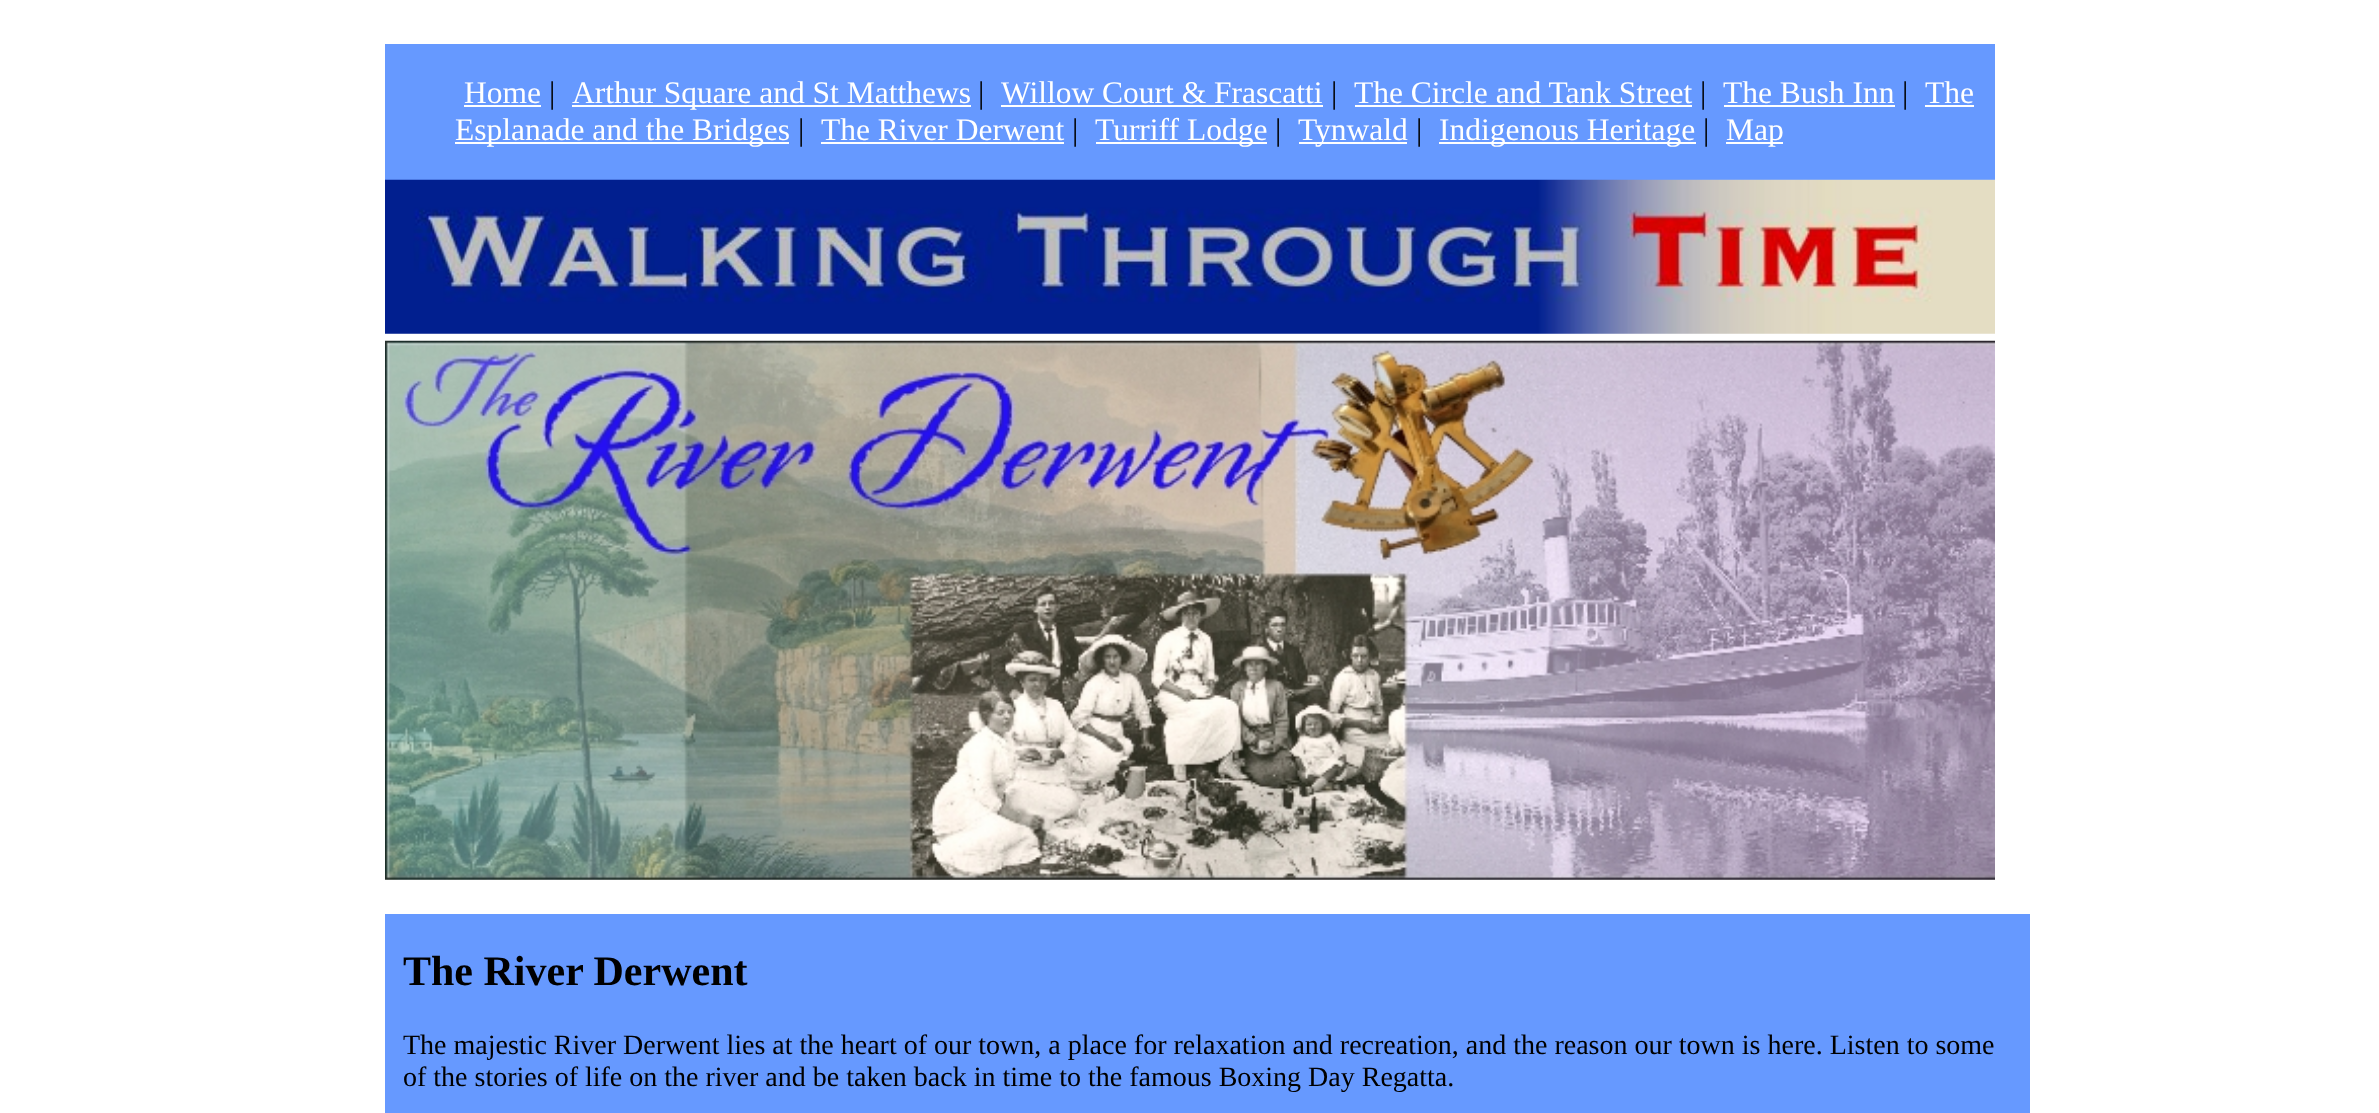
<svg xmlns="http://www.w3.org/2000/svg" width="2379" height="1113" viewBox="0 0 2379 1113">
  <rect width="100%" height="100%" fill="#ffffff"/>
  <rect x="385" y="44" width="1610" height="136" fill="#6699ff"/>
  <text x="464" y="103" font-family="Liberation Serif" font-size="31.5" fill="#ffffff">Home</text>
  <rect x="464" y="105" width="77" height="2" fill="#ffffff"/>
  <text x="549" y="103" font-family="Liberation Serif" font-size="31.5" fill="#000000">|</text>
  <rect x="572" y="105" width="399" height="2" fill="#ffffff"/>
  <text x="572" y="103" font-family="Liberation Serif" font-size="31.5" fill="#ffffff">Arthur Square and St Matthews</text>
  <text x="978" y="103" font-family="Liberation Serif" font-size="31.5" fill="#000000">|</text>
  <text x="1001" y="103" font-family="Liberation Serif" font-size="31.5" fill="#ffffff">Willow Court &amp; Frascatti</text>
  <rect x="1001" y="105" width="322" height="2" fill="#ffffff"/>
  <text x="1331" y="103" font-family="Liberation Serif" font-size="31.5" fill="#000000">|</text>
  <text x="1354" y="103" font-family="Liberation Serif" font-size="31.5" fill="#ffffff">The Circle and Tank Street</text>
  <rect x="1355" y="105" width="337" height="2" fill="#ffffff"/>
  <text x="1700" y="103" font-family="Liberation Serif" font-size="31.5" fill="#000000">|</text>
  <text x="1723" y="103" font-family="Liberation Serif" font-size="31.5" fill="#ffffff">The Bush Inn</text>
  <rect x="1724" y="105" width="171" height="2" fill="#ffffff"/>
  <text x="1902" y="103" font-family="Liberation Serif" font-size="31.5" fill="#000000">|</text>
  <text x="1925" y="103" font-family="Liberation Serif" font-size="31.5" fill="#ffffff">The</text>
  <rect x="1925" y="105" width="49" height="2" fill="#ffffff"/>
  <rect x="455" y="142" width="334" height="2" fill="#ffffff"/>
  <text x="455" y="140" font-family="Liberation Serif" font-size="31.5" fill="#ffffff">Esplanade and the Bridges</text>
  <text x="798" y="140" font-family="Liberation Serif" font-size="31.5" fill="#000000">|</text>
  <text x="821" y="140" font-family="Liberation Serif" font-size="31.5" fill="#ffffff">The River Derwent</text>
  <rect x="821" y="142" width="243" height="2" fill="#ffffff"/>
  <text x="1072" y="140" font-family="Liberation Serif" font-size="31.5" fill="#000000">|</text>
  <rect x="1096" y="142" width="171" height="2" fill="#ffffff"/>
  <text x="1095" y="140" font-family="Liberation Serif" font-size="31.5" fill="#ffffff">Turriff Lodge</text>
  <text x="1275" y="140" font-family="Liberation Serif" font-size="31.5" fill="#000000">|</text>
  <rect x="1299" y="142" width="108" height="2" fill="#ffffff"/>
  <text x="1298" y="140" font-family="Liberation Serif" font-size="31.5" fill="#ffffff">Tynwald</text>
  <text x="1416" y="140" font-family="Liberation Serif" font-size="31.5" fill="#000000">|</text>
  <rect x="1439" y="142" width="257" height="2" fill="#ffffff"/>
  <text x="1439" y="140" font-family="Liberation Serif" font-size="31.5" fill="#ffffff">Indigenous Heritage</text>
  <text x="1703" y="140" font-family="Liberation Serif" font-size="31.5" fill="#000000">|</text>
  <rect x="1726" y="142" width="57" height="2" fill="#ffffff"/>
  <text x="1726" y="140" font-family="Liberation Serif" font-size="31.5" fill="#ffffff">Map</text>
  <image x="385" y="179" width="1610" height="155" href="img1.png"/>
  <image x="385" y="340" width="1610" height="540" href="img2.png"/>
  <rect x="385" y="914" width="1645" height="199" fill="#6699ff"/>
  <text x="403" y="985" font-family="Liberation Serif" font-size="42" font-weight="bold" fill="#000000">The River Derwent</text>
  <text x="403" y="1054" font-family="Liberation Serif" font-size="28" fill="#000000">The majestic River Derwent lies at the heart of our town, a place for relaxation and recreation, and the reason our town is here. Listen to some</text>
  <text x="403" y="1086" font-family="Liberation Serif" font-size="28" fill="#000000">of the stories of life on the river and be taken back in time to the famous Boxing Day Regatta.</text>
</svg>
